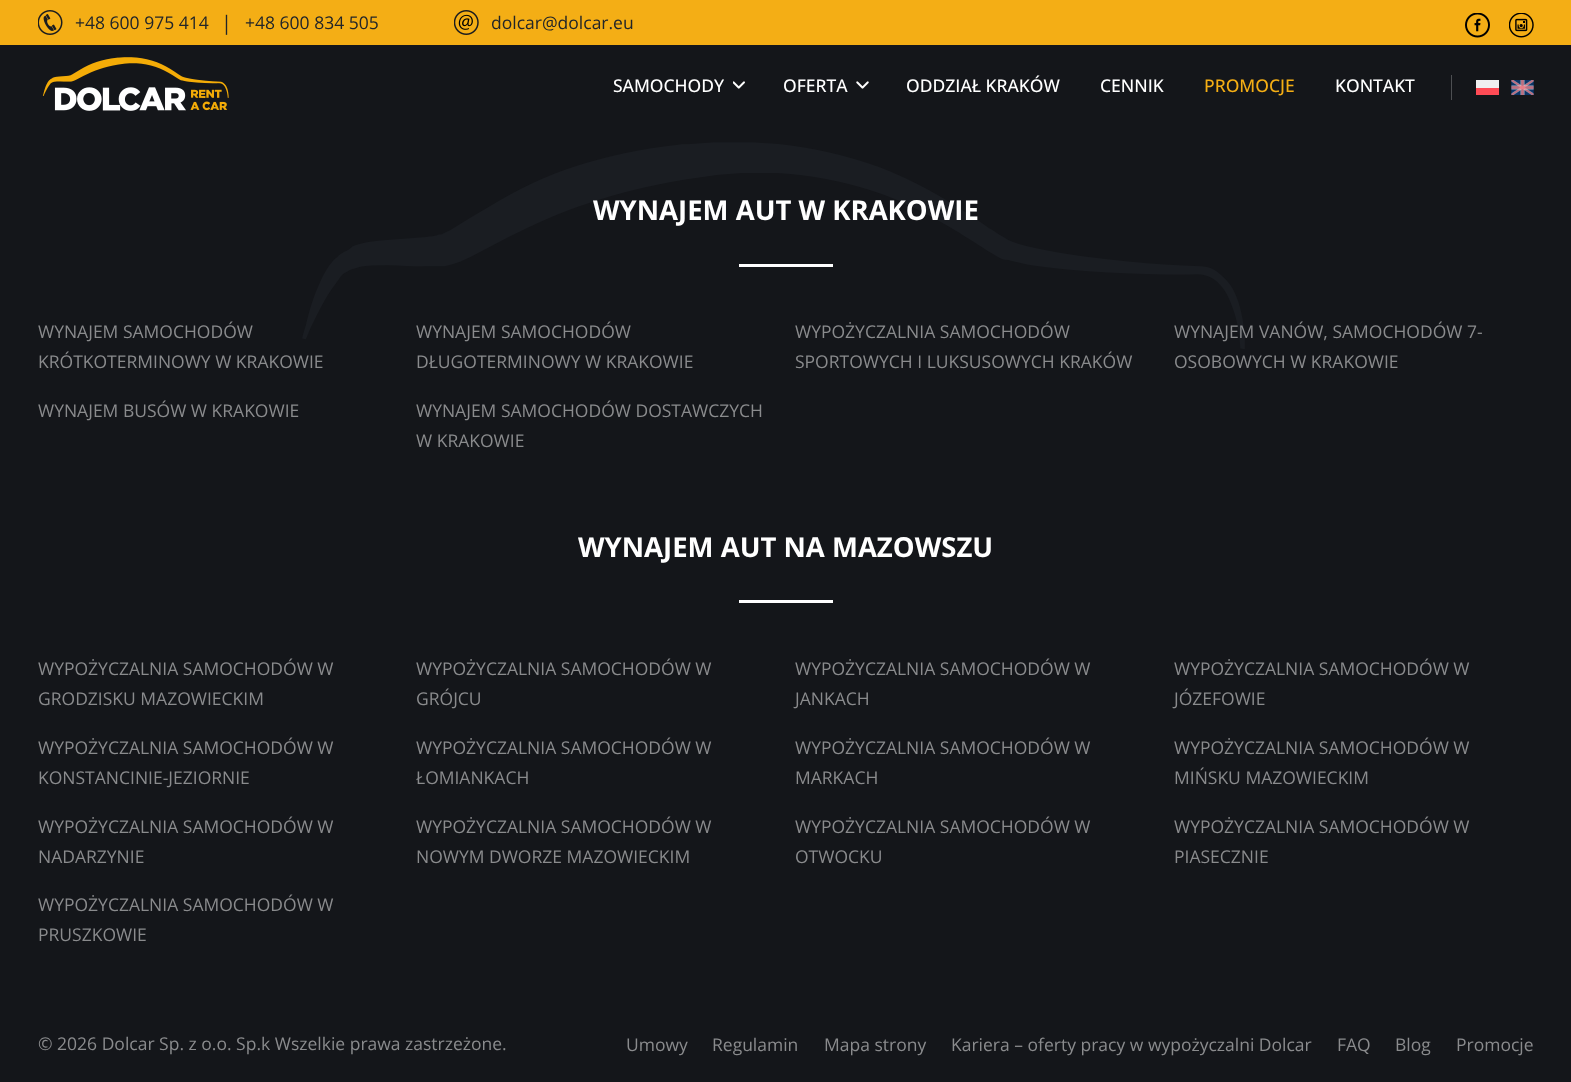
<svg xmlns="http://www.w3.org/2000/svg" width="1571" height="1082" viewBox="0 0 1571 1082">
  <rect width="100%" height="100%" fill="#14161a"/>
  <rect x="0" y="0" width="1571" height="45" fill="#f4ae15"/>
  <image x="38" y="10" width="25" height="25" href="img1.png"/>
  <text x="75" y="29" font-family="Open Sans" font-size="17.5" fill="#212529">+48 600 975 414</text>
  <text x="221" y="30" font-family="Open Sans" font-size="20" fill="#212529">|</text>
  <text x="245" y="29" font-family="Open Sans" font-size="17.5" fill="#212529">+48 600 834 505</text>
  <image x="454" y="10" width="25" height="25" href="img2.png"/>
  <text x="491" y="29" font-family="Open Sans" font-size="17.5" fill="#212529">dolcar@dolcar.eu</text>
  <image x="1465" y="13" width="25" height="25" href="img3.png"/>
  <image x="1509" y="13" width="25" height="25" href="img4.png"/>
  <image x="42" y="57" width="187" height="54" href="img5.png"/>
  <text x="613" y="92" font-family="Open Sans" font-size="17.5" font-weight="500" fill="#ffffff">SAMOCHODY</text>
  <image x="733" y="81" width="12" height="8" href="img6.png"/>
  <text x="783" y="92" font-family="Open Sans" font-size="17.5" font-weight="500" fill="#ffffff">OFERTA</text>
  <image x="856" y="81" width="13" height="8" href="img7.png"/>
  <text x="906" y="92" font-family="Open Sans" font-size="17.5" font-weight="500" fill="#ffffff">ODDZIAŁ KRAKÓW</text>
  <text x="1100" y="92" font-family="Open Sans" font-size="17.5" font-weight="500" fill="#ffffff">CENNIK</text>
  <text x="1204" y="92" font-family="Open Sans" font-size="17.5" font-weight="500" fill="#f4ae15">PROMOCJE</text>
  <text x="1335" y="92" font-family="Open Sans" font-size="17.5" font-weight="500" fill="#ffffff">KONTAKT</text>
  <rect x="1451" y="75" width="1" height="25" fill="#4d4f52"/>
  <rect x="1476" y="80" width="23" height="8" fill="#f0f0f0"/>
  <rect x="1476" y="88" width="23" height="7" fill="#ff4b55"/>
  <image x="1511" y="80" width="23" height="15" href="img8.png"/>
  <image x="302" y="142" width="943" height="207" href="img9.png"/>
  <text x="593" y="220" font-family="Open Sans" font-size="27.5" font-weight="bold" fill="#ffffff">WYNAJEM AUT W KRAKOWIE</text>
  <rect x="739" y="264" width="94" height="3" fill="#ffffff"/>
  <text x="38" y="338" font-family="Open Sans" font-size="17.5" fill="#8a8b8d">WYNAJEM SAMOCHODÓW</text>
  <text x="38" y="368" font-family="Open Sans" font-size="17.5" fill="#8a8b8d">KRÓTKOTERMINOWY W KRAKOWIE</text>
  <text x="416" y="338" font-family="Open Sans" font-size="17.5" fill="#8a8b8d">WYNAJEM SAMOCHODÓW</text>
  <text x="416" y="368" font-family="Open Sans" font-size="17.5" fill="#8a8b8d">DŁUGOTERMINOWY W KRAKOWIE</text>
  <text x="795" y="338" font-family="Open Sans" font-size="17.5" fill="#8a8b8d">WYPOŻYCZALNIA SAMOCHODÓW</text>
  <text x="795" y="368" font-family="Open Sans" font-size="17.5" fill="#8a8b8d">SPORTOWYCH I LUKSUSOWYCH KRAKÓW</text>
  <text x="1174" y="338" font-family="Open Sans" font-size="17.5" fill="#8a8b8d">WYNAJEM VANÓW, SAMOCHODÓW 7-</text>
  <text x="1174" y="368" font-family="Open Sans" font-size="17.5" fill="#8a8b8d">OSOBOWYCH W KRAKOWIE</text>
  <text x="38" y="417" font-family="Open Sans" font-size="17.5" fill="#8a8b8d">WYNAJEM BUSÓW W KRAKOWIE</text>
  <text x="416" y="417" font-family="Open Sans" font-size="17.5" fill="#8a8b8d">WYNAJEM SAMOCHODÓW DOSTAWCZYCH</text>
  <text x="416" y="447" font-family="Open Sans" font-size="17.5" fill="#8a8b8d">W KRAKOWIE</text>
  <text x="578" y="557" font-family="Open Sans" font-size="27.5" font-weight="bold" fill="#ffffff">WYNAJEM AUT NA MAZOWSZU</text>
  <rect x="739" y="600" width="94" height="3" fill="#ffffff"/>
  <text x="38" y="675" font-family="Open Sans" font-size="17.5" fill="#8a8b8d">WYPOŻYCZALNIA SAMOCHODÓW W</text>
  <text x="38" y="705" font-family="Open Sans" font-size="17.5" fill="#8a8b8d">GRODZISKU MAZOWIECKIM</text>
  <text x="416" y="675" font-family="Open Sans" font-size="17.5" fill="#8a8b8d">WYPOŻYCZALNIA SAMOCHODÓW W</text>
  <text x="416" y="705" font-family="Open Sans" font-size="17.5" fill="#8a8b8d">GRÓJCU</text>
  <text x="795" y="675" font-family="Open Sans" font-size="17.5" fill="#8a8b8d">WYPOŻYCZALNIA SAMOCHODÓW W</text>
  <text x="795" y="705" font-family="Open Sans" font-size="17.5" fill="#8a8b8d">JANKACH</text>
  <text x="1174" y="675" font-family="Open Sans" font-size="17.5" fill="#8a8b8d">WYPOŻYCZALNIA SAMOCHODÓW W</text>
  <text x="1174" y="705" font-family="Open Sans" font-size="17.5" fill="#8a8b8d">JÓZEFOWIE</text>
  <text x="38" y="754" font-family="Open Sans" font-size="17.5" fill="#8a8b8d">WYPOŻYCZALNIA SAMOCHODÓW W</text>
  <text x="38" y="784" font-family="Open Sans" font-size="17.5" fill="#8a8b8d">KONSTANCINIE-JEZIORNIE</text>
  <text x="416" y="754" font-family="Open Sans" font-size="17.5" fill="#8a8b8d">WYPOŻYCZALNIA SAMOCHODÓW W</text>
  <text x="416" y="784" font-family="Open Sans" font-size="17.5" fill="#8a8b8d">ŁOMIANKACH</text>
  <text x="795" y="754" font-family="Open Sans" font-size="17.5" fill="#8a8b8d">WYPOŻYCZALNIA SAMOCHODÓW W</text>
  <text x="795" y="784" font-family="Open Sans" font-size="17.5" fill="#8a8b8d">MARKACH</text>
  <text x="1174" y="754" font-family="Open Sans" font-size="17.5" fill="#8a8b8d">WYPOŻYCZALNIA SAMOCHODÓW W</text>
  <text x="1174" y="784" font-family="Open Sans" font-size="17.5" fill="#8a8b8d">MIŃSKU MAZOWIECKIM</text>
  <text x="38" y="833" font-family="Open Sans" font-size="17.5" fill="#8a8b8d">WYPOŻYCZALNIA SAMOCHODÓW W</text>
  <text x="38" y="863" font-family="Open Sans" font-size="17.5" fill="#8a8b8d">NADARZYNIE</text>
  <text x="416" y="833" font-family="Open Sans" font-size="17.5" fill="#8a8b8d">WYPOŻYCZALNIA SAMOCHODÓW W</text>
  <text x="416" y="863" font-family="Open Sans" font-size="17.5" fill="#8a8b8d">NOWYM DWORZE MAZOWIECKIM</text>
  <text x="795" y="833" font-family="Open Sans" font-size="17.5" fill="#8a8b8d">WYPOŻYCZALNIA SAMOCHODÓW W</text>
  <text x="795" y="863" font-family="Open Sans" font-size="17.5" fill="#8a8b8d">OTWOCKU</text>
  <text x="1174" y="833" font-family="Open Sans" font-size="17.5" fill="#8a8b8d">WYPOŻYCZALNIA SAMOCHODÓW W</text>
  <text x="1174" y="863" font-family="Open Sans" font-size="17.5" fill="#8a8b8d">PIASECZNIE</text>
  <text x="38" y="911" font-family="Open Sans" font-size="17.5" fill="#8a8b8d">WYPOŻYCZALNIA SAMOCHODÓW W</text>
  <text x="38" y="941" font-family="Open Sans" font-size="17.5" fill="#8a8b8d">PRUSZKOWIE</text>
  <text x="38" y="1050" font-family="Open Sans" font-size="17.5" fill="#8a8b8d">© 2026 Dolcar Sp. z o.o. Sp.k Wszelkie prawa zastrzeżone.</text>
  <text x="626" y="1051" font-family="Open Sans" font-size="17.5" fill="#8a8b8d">Umowy</text>
  <text x="712" y="1051" font-family="Open Sans" font-size="17.5" fill="#8a8b8d">Regulamin</text>
  <text x="824" y="1051" font-family="Open Sans" font-size="17.5" fill="#8a8b8d">Mapa strony</text>
  <text x="951" y="1051" font-family="Open Sans" font-size="17.5" fill="#8a8b8d">Kariera – oferty pracy w wypożyczalni Dolcar</text>
  <text x="1337" y="1051" font-family="Open Sans" font-size="17.5" fill="#8a8b8d">FAQ</text>
  <text x="1395" y="1051" font-family="Open Sans" font-size="17.5" fill="#8a8b8d">Blog</text>
  <text x="1456" y="1051" font-family="Open Sans" font-size="17.5" fill="#8a8b8d">Promocje</text>
</svg>
